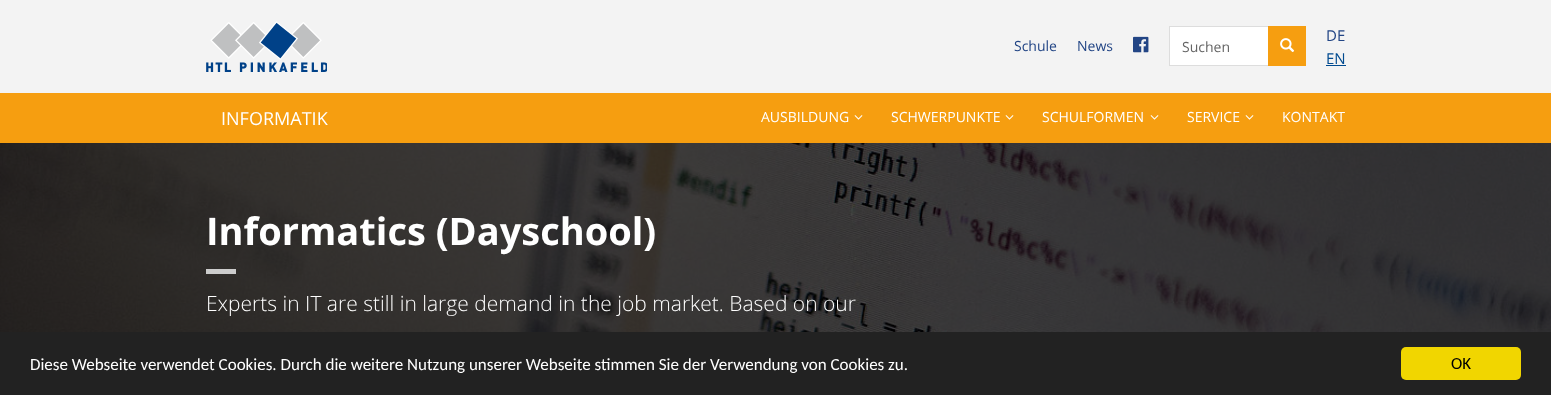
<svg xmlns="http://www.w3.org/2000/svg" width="1551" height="395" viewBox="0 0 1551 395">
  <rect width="100%" height="100%" fill="#f69e10"/>
  <rect x="0" y="0" width="1551" height="93" fill="#f3f3f3"/>
  <image x="206" y="21" width="121" height="51" href="img1.png"/>
  <text x="1014" y="51" font-family="Open Sans" font-size="14" fill="#224585">Schule</text>
  <text x="1077" y="51" font-family="Open Sans" font-size="14" fill="#224585">News</text>
  <image x="1133" y="36" width="16" height="17" href="img2.png"/>
  <rect x="1169.5" y="26.5" width="99" height="39" fill="#ffffff" stroke="#dddddd"/>
  <text x="1182" y="52" font-family="Open Sans" font-size="14" fill="#666666">Suchen</text>
  <rect x="1268" y="26" width="38" height="40" fill="#f69e10"/>
  <image x="1280" y="38" width="15" height="14" href="img3.png"/>
  <text x="1326" y="41" font-family="Open Sans" font-size="15" fill="#224585">DE</text>
  <text x="1326" y="64" font-family="Open Sans" font-size="15" fill="#004a8f">EN</text>
  <rect x="1326" y="65" width="20" height="1" fill="#004a8f"/>
  <text x="221" y="125" font-family="Open Sans" font-size="18" fill="#ffffff">INFORMATIK</text>
  <text x="761" y="122" font-family="Open Sans" font-size="14" fill="#ffffff">AUSBILDUNG</text>
  <image x="854" y="115" width="9" height="5" href="img4.png"/>
  <text x="891" y="122" font-family="Open Sans" font-size="14" fill="#ffffff">SCHWERPUNKTE</text>
  <image x="1005" y="115" width="9" height="5" href="img4.png"/>
  <text x="1042" y="122" font-family="Open Sans" font-size="14" fill="#ffffff">SCHULFORMEN</text>
  <image x="1150" y="115" width="9" height="5" href="img4.png"/>
  <text x="1187" y="122" font-family="Open Sans" font-size="14" fill="#ffffff">SERVICE</text>
  <image x="1245" y="115" width="9" height="5" href="img4.png"/>
  <text x="1282" y="122" font-family="Open Sans" font-size="14" fill="#ffffff">KONTAKT</text>
  <image x="0" y="143" width="1551" height="189" href="img5.png"/>
  <text x="206" y="245" font-family="Open Sans" font-size="38" font-weight="bold" fill="#ffffff">Informatics (Dayschool)</text>
  <rect x="206" y="269" width="30" height="5" fill="#cccccc"/>
  <text x="206" y="311" font-family="Open Sans" font-size="21" font-weight="300" fill="#ffffff">Experts in IT are still in large demand in the job market. Based on our</text>
  <rect x="0" y="332" width="1551" height="63" fill="#222222"/>
  <text x="30" y="370" font-family="Carlito" font-size="17" fill="#ffffff">Diese Webseite verwendet Cookies. Durch die weitere Nutzung unserer Webseite stimmen Sie der Verwendung von Cookies zu.</text>
  <rect x="1401" y="347" width="120" height="33" rx="5" fill="#f1d600"/>
  <text x="1451" y="369" font-family="Carlito" font-size="17" fill="#000000">OK</text>
</svg>
